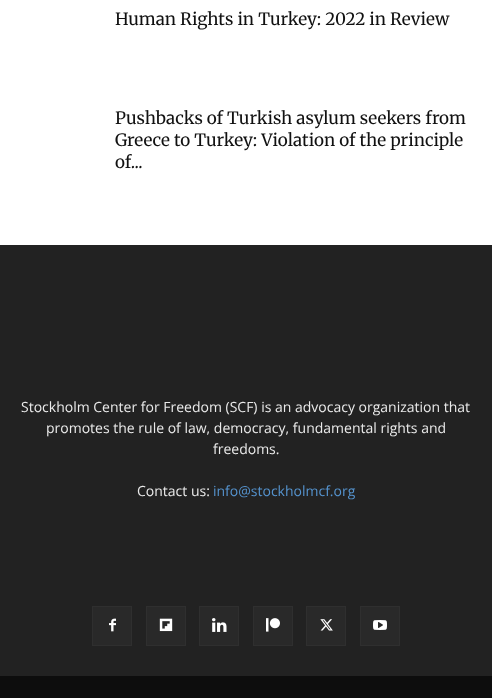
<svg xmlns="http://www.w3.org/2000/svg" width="492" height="698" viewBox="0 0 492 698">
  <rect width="100%" height="100%" fill="#ffffff"/>
  <text x="115" y="25" font-family="Merriweather" font-size="17" font-weight="300" fill="#111111">Human Rights in Turkey: 2022 in Review</text>
  <text x="115" y="124" font-family="Merriweather" font-size="17" font-weight="300" fill="#111111">Pushbacks of Turkish asylum seekers from</text>
  <text x="115" y="146" font-family="Merriweather" font-size="17" font-weight="300" fill="#111111">Greece to Turkey: Violation of the principle</text>
  <text x="115" y="168" font-family="Merriweather" font-size="17" font-weight="300" fill="#111111">of...</text>
  <rect x="0" y="245" width="492" height="431" fill="#222222"/>
  <text x="21" y="412" font-family="Open Sans" font-size="14" fill="#eaeaea">Stockholm Center for Freedom (SCF) is an advocacy organization that</text>
  <text x="46" y="433" font-family="Open Sans" font-size="14" fill="#eaeaea">promotes the rule of law, democracy, fundamental rights and</text>
  <text x="213" y="454" font-family="Open Sans" font-size="14" fill="#eaeaea">freedoms.</text>
  <text x="137" y="496" font-family="Open Sans" font-size="14" fill="#eaeaea">Contact us:</text>
  <text x="213" y="496" font-family="Open Sans" font-size="14" fill="#5593ce">info@stockholmcf.org</text>
  <rect x="93" y="607" width="38" height="38" fill="#292929"/>
  <image x="109" y="618" width="7" height="14" href="img1.png"/>
  <rect x="92.5" y="606.5" width="39" height="39" fill="none" stroke="#2f2f2f"/>
  <rect x="147" y="607" width="38" height="38" fill="#292929"/>
  <image x="159" y="618" width="14" height="14" href="img2.png"/>
  <rect x="146.5" y="606.5" width="39" height="39" fill="none" stroke="#2f2f2f"/>
  <rect x="200" y="607" width="38" height="38" fill="#292929"/>
  <image x="212" y="618" width="15" height="14" href="img3.png"/>
  <rect x="199.5" y="606.5" width="39" height="39" fill="none" stroke="#2f2f2f"/>
  <rect x="254" y="607" width="38" height="38" fill="#292929"/>
  <image x="266" y="618" width="14" height="14" href="img4.png"/>
  <rect x="253.5" y="606.5" width="39" height="39" fill="none" stroke="#2f2f2f"/>
  <rect x="307" y="607" width="38" height="38" fill="#292929"/>
  <image x="320" y="619" width="13" height="12" href="img5.png"/>
  <rect x="306.5" y="606.5" width="39" height="39" fill="none" stroke="#2f2f2f"/>
  <rect x="361" y="607" width="38" height="38" fill="#292929"/>
  <image x="373" y="620" width="14" height="10" href="img6.png"/>
  <rect x="360.5" y="606.5" width="39" height="39" fill="none" stroke="#2f2f2f"/>
  <rect x="0" y="676" width="492" height="22" fill="#0d0d0d"/>
</svg>
